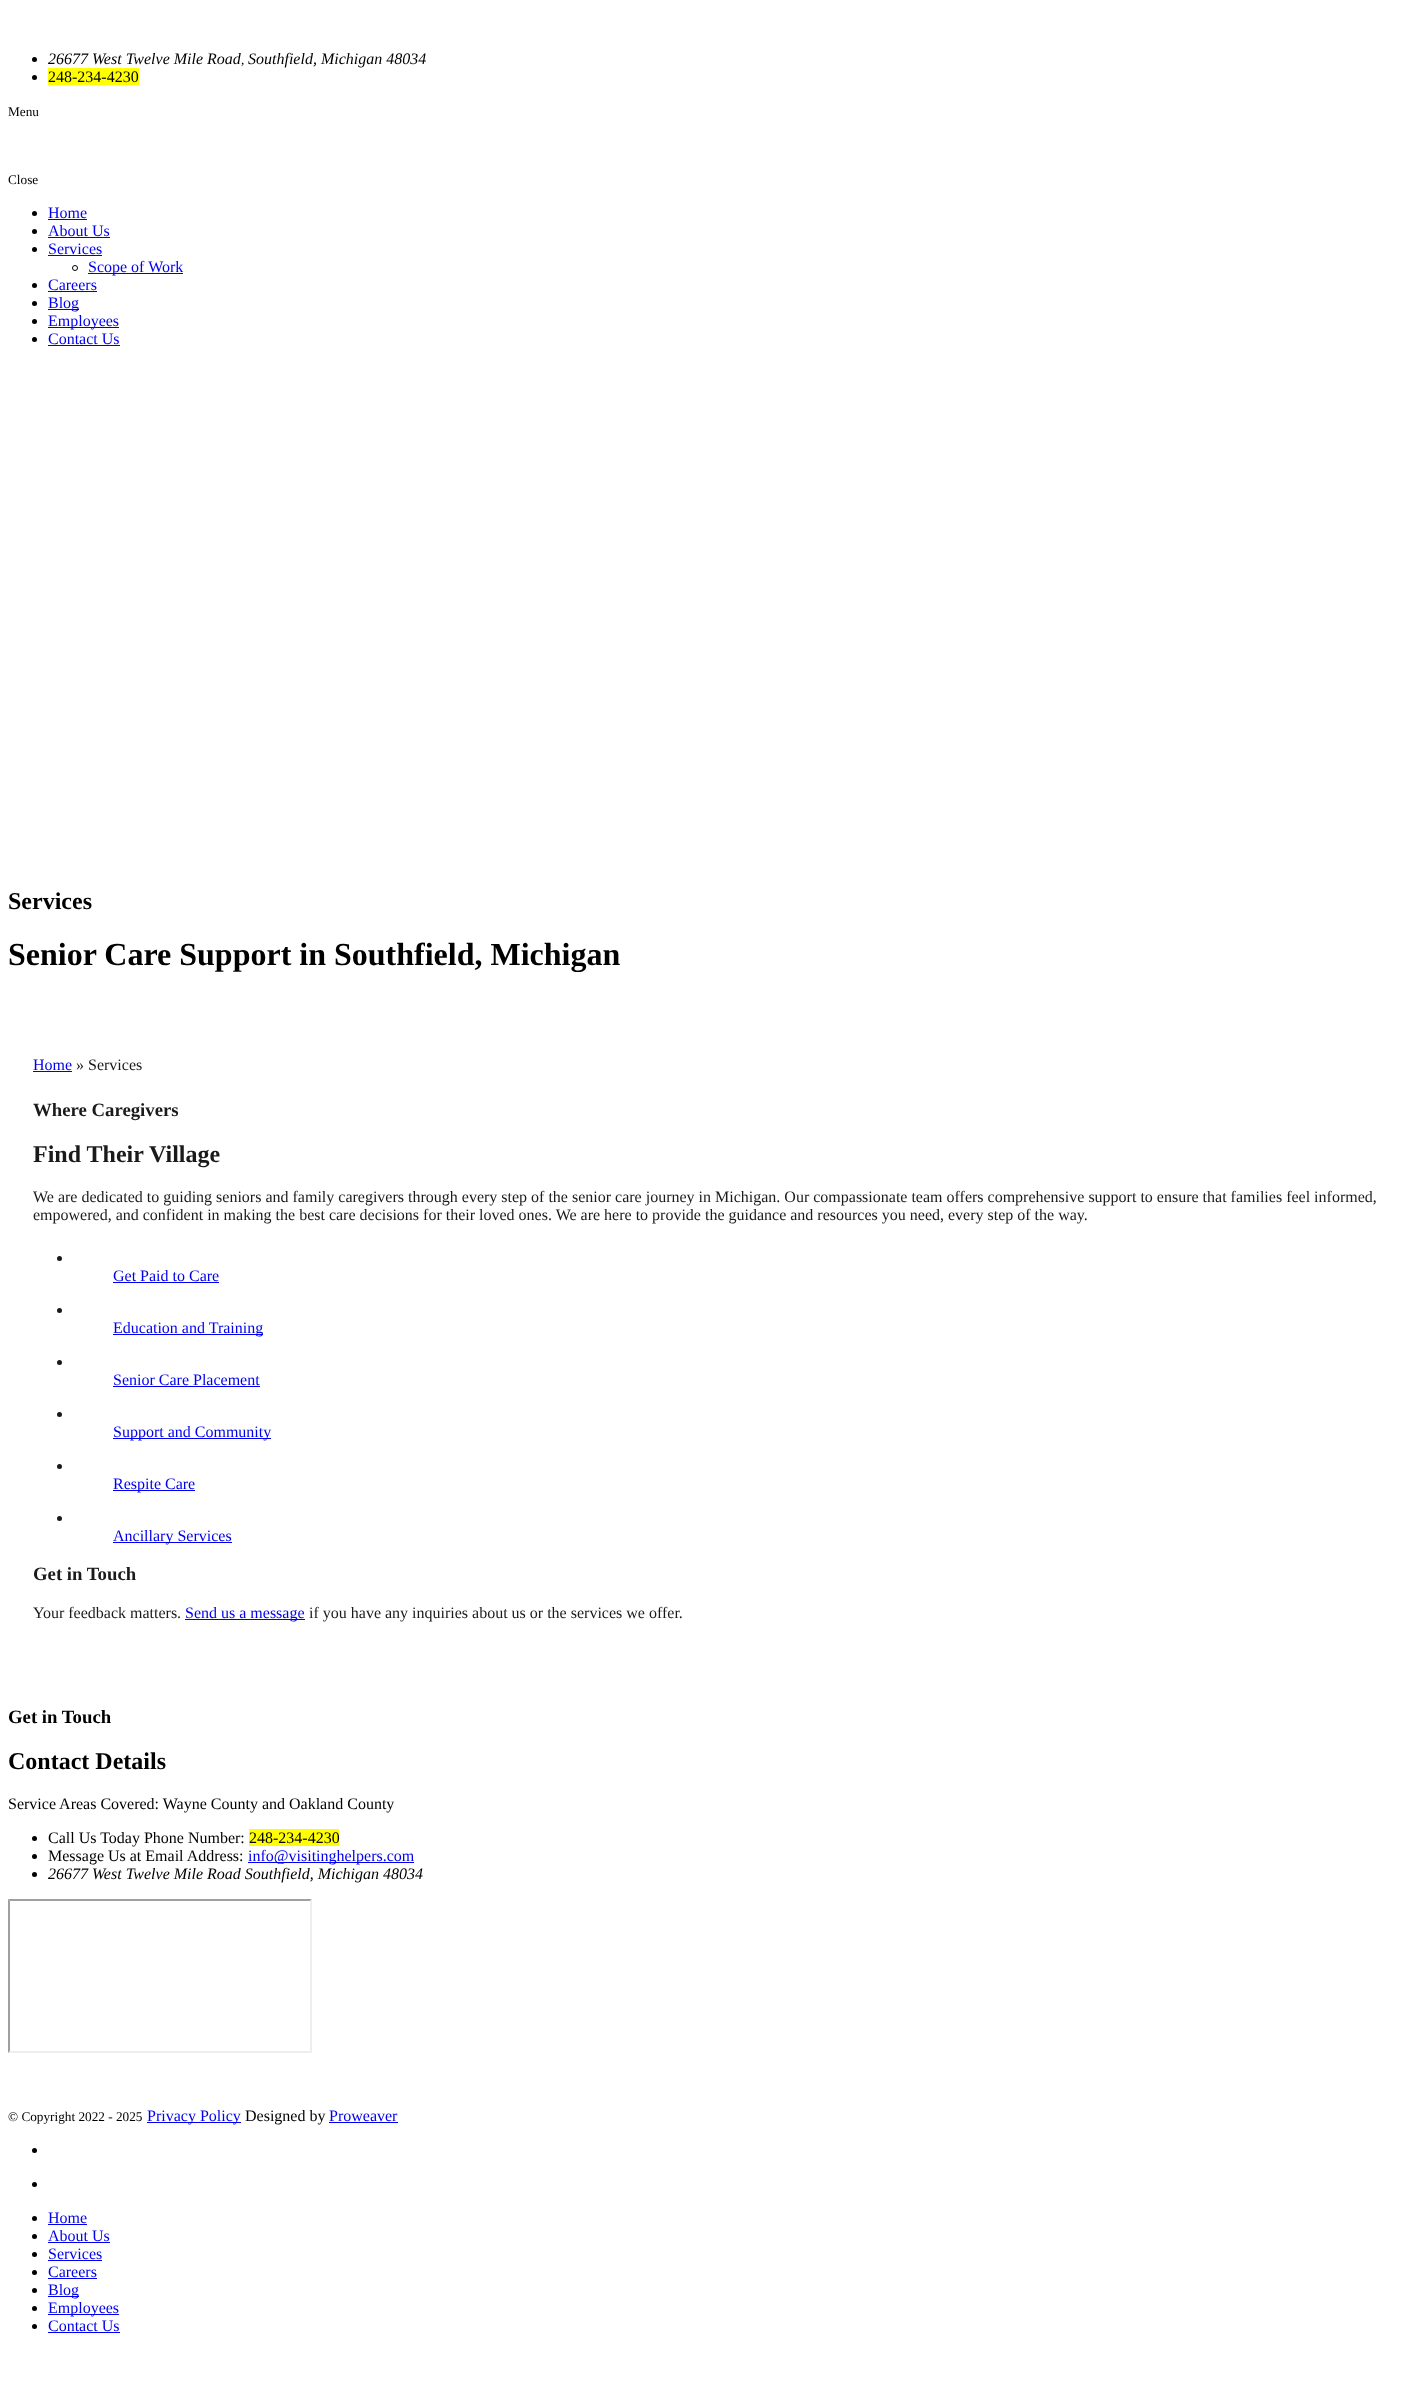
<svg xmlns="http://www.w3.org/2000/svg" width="1414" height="2397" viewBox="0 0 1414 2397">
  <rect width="100%" height="100%" fill="#ffffff"/>
  <circle cx="34.5" cy="59.5" r="2.5" fill="#000000"/>
  <text x="48" y="64" font-family="Liberation Serif" font-size="16" font-style="italic" fill="#000000">26677 West Twelve Mile Road</text>
  <text x="241" y="64" font-family="Liberation Serif" font-size="13.25" font-style="italic" fill="#000000">,</text>
  <text x="248" y="64" font-family="Liberation Serif" font-size="16" font-style="italic" fill="#000000">Southfield, Michigan 48034</text>
  <circle cx="34.5" cy="77.5" r="2.5" fill="#000000"/>
  <rect x="48" y="68" width="91" height="17" fill="#ffff00"/>
  <text x="48" y="82" font-family="Liberation Serif" font-size="16" fill="#000000">248-234-4230</text>
  <text x="8" y="116" font-family="Liberation Serif" font-size="13.25" fill="#000000">Menu</text>
  <text x="8" y="184" font-family="Liberation Serif" font-size="13.25" fill="#000000">Close</text>
  <circle cx="34.5" cy="213.5" r="2.5" fill="#000000"/>
  <text x="48" y="218" font-family="Liberation Serif" font-size="16" fill="#0000ee">Home</text>
  <rect x="48" y="219" width="39" height="1" fill="#0000ee"/>
  <circle cx="34.5" cy="231.5" r="2.5" fill="#000000"/>
  <text x="48" y="236" font-family="Liberation Serif" font-size="16" fill="#0000ee">About Us</text>
  <rect x="48" y="237" width="62" height="1" fill="#0000ee"/>
  <circle cx="34.5" cy="249.5" r="2.5" fill="#000000"/>
  <text x="48" y="254" font-family="Liberation Serif" font-size="16" fill="#0000ee">Services</text>
  <rect x="48" y="255" width="54" height="1" fill="#0000ee"/>
  <circle cx="75" cy="268" r="2.5" fill="none" stroke="#000000"/>
  <rect x="88" y="273" width="95" height="1" fill="#0000ee"/>
  <text x="88" y="272" font-family="Liberation Serif" font-size="16" fill="#0000ee">Scope of Work</text>
  <circle cx="34.5" cy="285.5" r="2.5" fill="#000000"/>
  <text x="48" y="290" font-family="Liberation Serif" font-size="16" fill="#0000ee">Careers</text>
  <rect x="48" y="291" width="49" height="1" fill="#0000ee"/>
  <circle cx="34.5" cy="303.5" r="2.5" fill="#000000"/>
  <rect x="48" y="309" width="31" height="1" fill="#0000ee"/>
  <text x="48" y="308" font-family="Liberation Serif" font-size="16" fill="#0000ee">Blog</text>
  <circle cx="34.5" cy="321.5" r="2.5" fill="#000000"/>
  <rect x="48" y="327" width="71" height="1" fill="#0000ee"/>
  <text x="48" y="326" font-family="Liberation Serif" font-size="16" fill="#0000ee">Employees</text>
  <circle cx="34.5" cy="339.5" r="2.5" fill="#000000"/>
  <text x="48" y="344" font-family="Liberation Serif" font-size="16" fill="#0000ee">Contact Us</text>
  <rect x="48" y="345" width="72" height="1" fill="#0000ee"/>
  <text x="8" y="909" font-family="Liberation Serif" font-size="24" font-weight="bold" fill="#000000">Services</text>
  <text x="8" y="965" font-family="Liberation Serif" font-size="32" font-weight="bold" fill="#000000">Senior Care Support in Southfield, Michigan</text>
  <text x="33" y="1070" font-family="Liberation Serif" font-size="16" fill="#0000ee">Home</text>
  <rect x="33" y="1071" width="39" height="1" fill="#0000ee"/>
  <text x="76" y="1070" font-family="Liberation Serif" font-size="16" fill="#1a1a1a">» Services</text>
  <text x="33" y="1116" font-family="Liberation Serif" font-size="18.75" font-weight="bold" fill="#1a1a1a">Where Caregivers</text>
  <text x="33" y="1162" font-family="Liberation Serif" font-size="24" font-weight="bold" fill="#1a1a1a">Find Their Village</text>
  <text x="33" y="1202" font-family="Liberation Serif" font-size="16" fill="#1a1a1a">We are dedicated to guiding seniors and family caregivers through every step of the senior care journey in Michigan. Our compassionate team offers comprehensive support to ensure that families feel informed,</text>
  <text x="33" y="1220" font-family="Liberation Serif" font-size="16" fill="#1a1a1a">empowered, and confident in making the best care decisions for their loved ones. We are here to provide the guidance and resources you need, every step of the way.</text>
  <circle cx="59.5" cy="1258.5" r="2.5" fill="#1a1a1a"/>
  <text x="113" y="1281" font-family="Liberation Serif" font-size="16" fill="#0000ee">Get Paid to Care</text>
  <rect x="113" y="1282" width="106" height="1" fill="#0000ee"/>
  <circle cx="59.5" cy="1310.5" r="2.5" fill="#1a1a1a"/>
  <rect x="113" y="1334" width="150" height="1" fill="#0000ee"/>
  <text x="113" y="1333" font-family="Liberation Serif" font-size="16" fill="#0000ee">Education and Training</text>
  <circle cx="59.5" cy="1362.5" r="2.5" fill="#1a1a1a"/>
  <text x="113" y="1385" font-family="Liberation Serif" font-size="16" fill="#0000ee">Senior Care Placement</text>
  <rect x="113" y="1386" width="147" height="1" fill="#0000ee"/>
  <circle cx="59.5" cy="1414.5" r="2.5" fill="#1a1a1a"/>
  <rect x="113" y="1438" width="158" height="1" fill="#0000ee"/>
  <text x="113" y="1437" font-family="Liberation Serif" font-size="16" fill="#0000ee">Support and Community</text>
  <circle cx="59.5" cy="1466.5" r="2.5" fill="#1a1a1a"/>
  <rect x="113" y="1490" width="82" height="1" fill="#0000ee"/>
  <text x="113" y="1489" font-family="Liberation Serif" font-size="16" fill="#0000ee">Respite Care</text>
  <circle cx="59.5" cy="1518.5" r="2.5" fill="#1a1a1a"/>
  <rect x="113" y="1542" width="119" height="1" fill="#0000ee"/>
  <text x="113" y="1541" font-family="Liberation Serif" font-size="16" fill="#0000ee">Ancillary Services</text>
  <text x="33" y="1580" font-family="Liberation Serif" font-size="18.75" font-weight="bold" fill="#1a1a1a">Get in Touch</text>
  <text x="33" y="1618" font-family="Liberation Serif" font-size="16" fill="#1a1a1a">Your feedback matters.</text>
  <rect x="185" y="1619" width="120" height="1" fill="#0000ee"/>
  <text x="185" y="1618" font-family="Liberation Serif" font-size="16" fill="#0000ee">Send us a message</text>
  <text x="309" y="1618" font-family="Liberation Serif" font-size="16" fill="#1a1a1a">if you have any inquiries about us or the services we offer.</text>
  <text x="8" y="1723" font-family="Liberation Serif" font-size="18.75" font-weight="bold" fill="#000000">Get in Touch</text>
  <text x="8" y="1769" font-family="Liberation Serif" font-size="24" font-weight="bold" fill="#000000">Contact Details</text>
  <text x="8" y="1809" font-family="Liberation Serif" font-size="16" fill="#000000">Service Areas Covered: Wayne County and Oakland County</text>
  <circle cx="34.5" cy="1838.5" r="2.5" fill="#000000"/>
  <text x="48" y="1843" font-family="Liberation Serif" font-size="16" fill="#000000">Call Us Today Phone Number:</text>
  <rect x="249" y="1829" width="90" height="17" fill="#ffff00"/>
  <text x="249" y="1843" font-family="Liberation Serif" font-size="16" fill="#000000">248-234-4230</text>
  <circle cx="34.5" cy="1856.5" r="2.5" fill="#000000"/>
  <text x="48" y="1861" font-family="Liberation Serif" font-size="16" fill="#000000">Message Us at Email Address:</text>
  <rect x="248" y="1862" width="166" height="1" fill="#0000ee"/>
  <text x="248" y="1861" font-family="Liberation Serif" font-size="16" fill="#0000ee">info@visitinghelpers.com</text>
  <circle cx="34.5" cy="1874.5" r="2.5" fill="#000000"/>
  <text x="48" y="1879" font-family="Liberation Serif" font-size="16" font-style="italic" fill="#000000">26677 West Twelve Mile Road Southfield, Michigan 48034</text>
  <path d="M8 1899H312L310 1901H10Z" fill="#9f9f9f"/>
  <path d="M312 1899V2053L310 2051V1901Z" fill="#eeeeee"/>
  <path d="M312 2053H8L10 2051H310Z" fill="#eeeeee"/>
  <path d="M8 2053V1899L10 1901V2051Z" fill="#9f9f9f"/>
  <text x="8" y="2121" font-family="Liberation Serif" font-size="13.25" fill="#000000">© Copyright 2022 - 2025</text>
  <rect x="147" y="2122" width="94" height="1" fill="#0000ee"/>
  <text x="147" y="2121" font-family="Liberation Serif" font-size="16" fill="#0000ee">Privacy Policy</text>
  <text x="245" y="2121" font-family="Liberation Serif" font-size="16" fill="#000000">Designed by</text>
  <text x="329" y="2121" font-family="Liberation Serif" font-size="16" fill="#0000ee">Proweaver</text>
  <rect x="329" y="2122" width="69" height="1" fill="#0000ee"/>
  <circle cx="34.5" cy="2150.5" r="2.5" fill="#000000"/>
  <circle cx="34.5" cy="2184.5" r="2.5" fill="#000000"/>
  <circle cx="34.5" cy="2218.5" r="2.5" fill="#000000"/>
  <text x="48" y="2223" font-family="Liberation Serif" font-size="16" fill="#0000ee">Home</text>
  <rect x="48" y="2224" width="39" height="1" fill="#0000ee"/>
  <circle cx="34.5" cy="2236.5" r="2.5" fill="#000000"/>
  <text x="48" y="2241" font-family="Liberation Serif" font-size="16" fill="#0000ee">About Us</text>
  <rect x="48" y="2242" width="62" height="1" fill="#0000ee"/>
  <circle cx="34.5" cy="2254.5" r="2.5" fill="#000000"/>
  <text x="48" y="2259" font-family="Liberation Serif" font-size="16" fill="#0000ee">Services</text>
  <rect x="48" y="2260" width="54" height="1" fill="#0000ee"/>
  <circle cx="34.5" cy="2272.5" r="2.5" fill="#000000"/>
  <text x="48" y="2277" font-family="Liberation Serif" font-size="16" fill="#0000ee">Careers</text>
  <rect x="48" y="2278" width="49" height="1" fill="#0000ee"/>
  <circle cx="34.5" cy="2290.5" r="2.5" fill="#000000"/>
  <rect x="48" y="2296" width="31" height="1" fill="#0000ee"/>
  <text x="48" y="2295" font-family="Liberation Serif" font-size="16" fill="#0000ee">Blog</text>
  <circle cx="34.5" cy="2308.5" r="2.5" fill="#000000"/>
  <rect x="48" y="2314" width="71" height="1" fill="#0000ee"/>
  <text x="48" y="2313" font-family="Liberation Serif" font-size="16" fill="#0000ee">Employees</text>
  <circle cx="34.5" cy="2326.5" r="2.5" fill="#000000"/>
  <text x="48" y="2331" font-family="Liberation Serif" font-size="16" fill="#0000ee">Contact Us</text>
  <rect x="48" y="2332" width="72" height="1" fill="#0000ee"/>
</svg>
